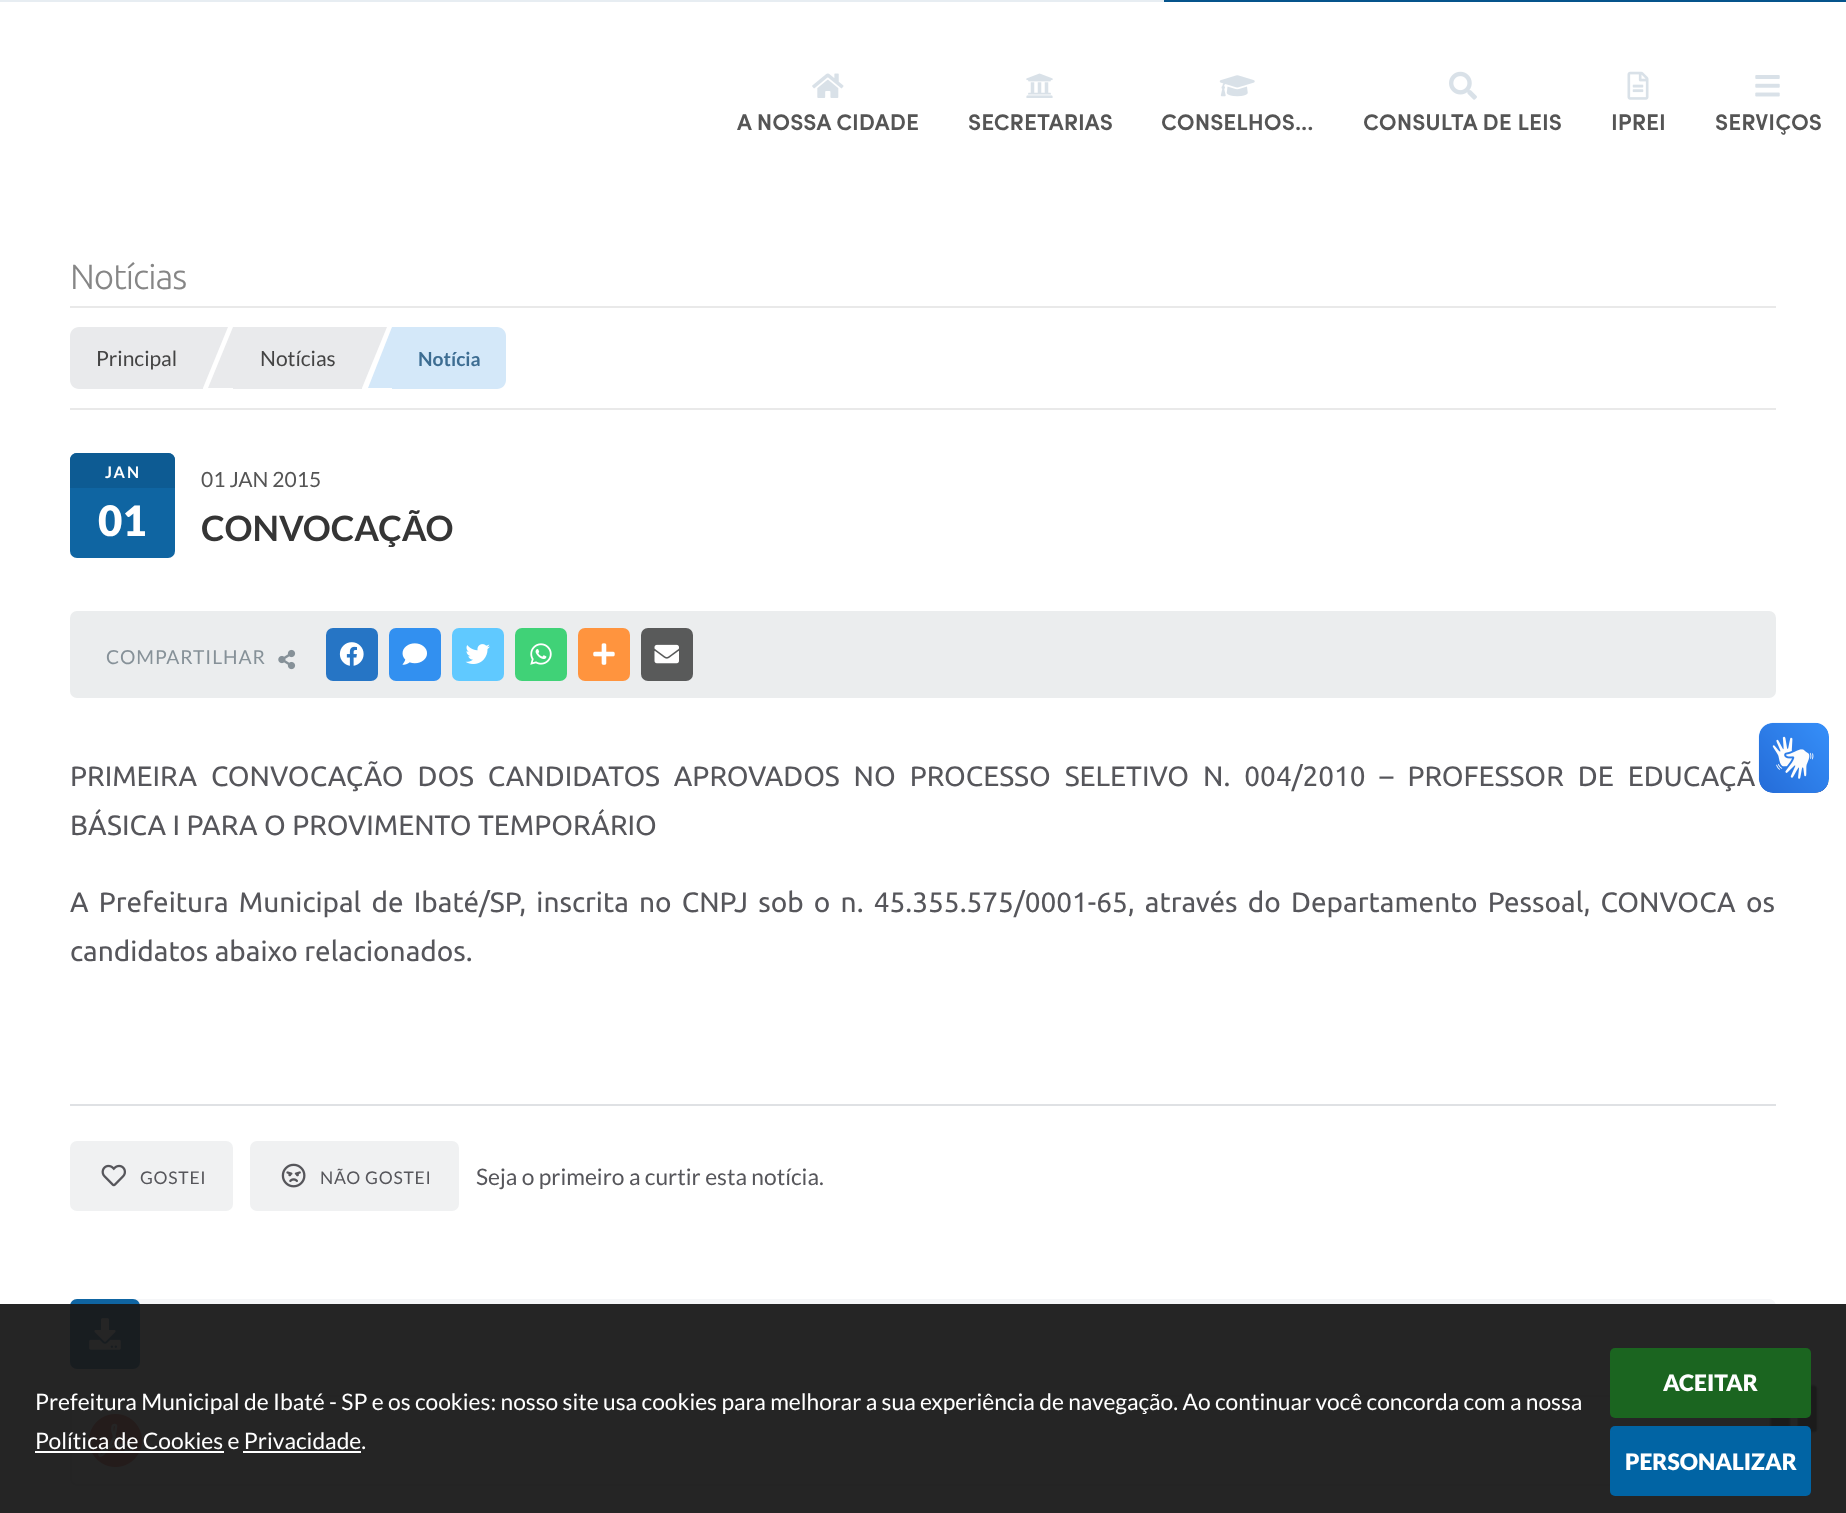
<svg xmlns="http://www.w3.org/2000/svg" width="1846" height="1513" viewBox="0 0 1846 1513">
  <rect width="100%" height="100%" fill="#ffffff"/>
  <rect x="0" y="0" width="1164" height="2" fill="#e7edf2"/>
  <rect x="1164" y="0" width="682" height="2" fill="#05548c"/>
  <image x="812" y="73" width="32" height="25" href="img1.png"/>
  <text x="737" y="130" font-family="Sofia" font-size="22.75" font-weight="600" fill="#555555">A NOSSA CIDADE</text>
  <image x="1026" y="73" width="27" height="25" href="img2.png"/>
  <text x="968" y="130" font-family="Sofia" font-size="22.75" font-weight="600" fill="#555555">SECRETARIAS</text>
  <image x="1219" y="75" width="36" height="22" href="img3.png"/>
  <text x="1161" y="130" font-family="Sofia" font-size="22.75" font-weight="600" fill="#555555">CONSELHOS...</text>
  <image x="1449" y="71" width="28" height="29" href="img4.png"/>
  <text x="1363" y="130" font-family="Sofia" font-size="22.75" font-weight="600" fill="#555555">CONSULTA DE LEIS</text>
  <image x="1627" y="71" width="22" height="29" href="img5.png"/>
  <text x="1611" y="130" font-family="Sofia" font-size="22.75" font-weight="600" fill="#555555">IPREI</text>
  <image x="1755" y="75" width="25" height="22" href="img6.png"/>
  <text x="1715" y="130" font-family="Sofia" font-size="22.75" font-weight="600" fill="#555555">SERVIÇOS</text>
  <image x="1758" y="722" width="71" height="71" href="img7.png"/>
  <image x="1759" y="723" width="70" height="70" href="img8.png"/>
  <rect x="70" y="1299" width="1706" height="70" rx="7" fill="#f5f6f8"/>
  <rect x="70" y="1299" width="70" height="70" rx="7" fill="#0f65a2"/>
  <image x="89" y="1318" width="32" height="32" href="img18.png"/>
  <rect x="71" y="1396" width="1696" height="89" rx="6" fill="#f3f4f6" stroke="#e3e6ec" stroke-width="2"/>
  <image x="89" y="1414" width="53" height="53" href="img19.png"/>
  <image x="1766" y="1383" width="53" height="51" href="img20.png"/>
  <rect x="0" y="1304" width="1846" height="209" fill="#191919" fill-opacity="0.95"/>
  <text x="35" y="1410" font-family="Lato" font-size="22.75" fill="#ffffff">Prefeitura Municipal de Ibaté - SP e os cookies: nosso site usa cookies para melhorar a sua experiência de navegação. Ao continuar você concorda com a nossa</text>
  <text x="35" y="1449" font-family="Lato" font-size="22.75" fill="#ffffff">Política de Cookies e Privacidade.</text>
  <rect x="35" y="1451" width="189" height="2" fill="#ffffff"/>
  <rect x="243" y="1451" width="118" height="2" fill="#ffffff"/>
  <rect x="1610" y="1348" width="201" height="70" rx="5" fill="#1b6520"/>
  <text x="1663" y="1391" font-family="Lato" font-size="22.75" font-weight="900" fill="#ffffff">ACEITAR</text>
  <rect x="1610" y="1426" width="201" height="70" rx="5" fill="#0164a4"/>
  <text x="1625" y="1470" font-family="Lato" font-size="22.75" font-weight="900" fill="#ffffff">PERSONALIZAR</text>
  <text x="70" y="289" font-family="Ubuntu" font-size="35" font-weight="300" letter-spacing="-1" fill="#868686">Notícias</text>
  <rect x="70" y="306" width="1706" height="2" fill="#e9e9e9"/>
  <rect x="70" y="408" width="1706" height="2" fill="#e9e9e9"/>
  <path d="M79 327H203V389H79C74 389 70 385 70 380V336C70 331 74 327 79 327Z" fill="#e9eaec"/>
  <text x="96" y="366" font-family="Lato" font-size="21" fill="#444444">Principal</text>
  <path d="M203 327H228L203 388Z" fill="#e9eaec"/>
  <rect x="233" y="327" width="129" height="62" fill="#e9eaec"/>
  <path d="M233 388H208L233 327Z" fill="#e9eaec"/>
  <text x="260" y="366" font-family="Lato" font-size="21" fill="#444444">Notícias</text>
  <path d="M362 327H387L362 388Z" fill="#e9eaec"/>
  <path d="M392 327H497C502 327 506 331 506 336V380C506 385 502 389 497 389H392Z" fill="#d4e8f9"/>
  <path d="M392 388H368L392 327Z" fill="#d4e8f9"/>
  <text x="418" y="366" font-family="Lato" font-size="19.25" font-weight="bold" fill="#3d6d92">Notícia</text>
  <rect x="70" y="453" width="105" height="105" rx="7" fill="#0f65a2"/>
  <path d="M77 453H168C172 453 175 456 175 460V488H70V460C70 456 73 453 77 453Z" fill="#0d5b93"/>
  <text x="105" y="478" font-family="Lato" font-size="16" font-weight="bold" letter-spacing="2" fill="#ffffff">JAN</text>
  <text x="98" y="536" font-family="Lato" font-size="42" font-weight="900" fill="#ffffff">01</text>
  <text x="201" y="487" font-family="Lato" font-size="21" fill="#555555">01 JAN 2015</text>
  <text x="201" y="541" font-family="Lato" font-size="35" font-weight="bold" fill="#353535">CONVOCAÇÃO</text>
  <rect x="70" y="611" width="1706" height="87" rx="7" fill="#ebedee"/>
  <text x="106" y="664" font-family="Lato" font-size="19.25" letter-spacing="0.9" fill="#869198">COMPARTILHAR</text>
  <image x="278" y="649" width="18" height="21" href="img9.png"/>
  <rect x="326" y="628" width="52" height="53" rx="7" fill="#2675c5"/>
  <image x="339" y="642" width="25" height="24" href="img10.png"/>
  <rect x="389" y="628" width="52" height="53" rx="7" fill="#3290f0"/>
  <image x="402" y="643" width="25" height="22" href="img11.png"/>
  <rect x="452" y="628" width="52" height="53" rx="7" fill="#60c9ff"/>
  <image x="465" y="644" width="25" height="20" href="img12.png"/>
  <rect x="515" y="628" width="52" height="53" rx="7" fill="#40d277"/>
  <image x="530" y="643" width="22" height="22" href="img13.png"/>
  <rect x="578" y="628" width="52" height="53" rx="7" fill="#ff943e"/>
  <image x="593" y="643" width="22" height="22" href="img14.png"/>
  <rect x="641" y="628" width="52" height="53" rx="7" fill="#595a5a"/>
  <image x="654" y="644" width="25" height="20" href="img15.png"/>
  <text x="70" y="786" word-spacing="7.5" font-family="Ubuntu" font-size="28" fill="#56565b">PRIMEIRA CONVOCAÇÃO DOS CANDIDATOS APROVADOS NO PROCESSO SELETIVO N. 004/2010 – PROFESSOR DE EDUCAÇÃ</text>
  <text x="70" y="835" font-family="Ubuntu" font-size="28" fill="#56565b">BÁSICA I PARA O PROVIMENTO TEMPORÁRIO</text>
  <text x="70" y="912" word-spacing="3.75" font-family="Ubuntu" font-size="28" fill="#56565b">A Prefeitura Municipal de Ibaté/SP, inscrita no CNPJ sob o n. 45.355.575/0001-65, através do Departamento Pessoal, CONVOCA os</text>
  <text x="70" y="961" font-family="Ubuntu" font-size="28" fill="#56565b">candidatos abaixo relacionados.</text>
  <rect x="70" y="1104" width="1706" height="2" fill="#dfe1e4"/>
  <rect x="70" y="1141" width="163" height="70" rx="7" fill="#f0f1f2"/>
  <image x="101" y="1164" width="25" height="23" href="img16.png"/>
  <text x="140" y="1184" font-family="Lato" font-size="17.5" letter-spacing="0.75" fill="#56565b">GOSTEI</text>
  <rect x="250" y="1141" width="209" height="70" rx="7" fill="#f0f1f2"/>
  <image x="281" y="1163" width="25" height="25" href="img17.png"/>
  <text x="320" y="1184" font-family="Lato" font-size="17.5" letter-spacing="0.75" fill="#56565b">NÃO GOSTEI</text>
  <text x="476" y="1185" font-family="Lato" font-size="22.75" fill="#56565b">Seja o primeiro a curtir esta notícia.</text>
</svg>
